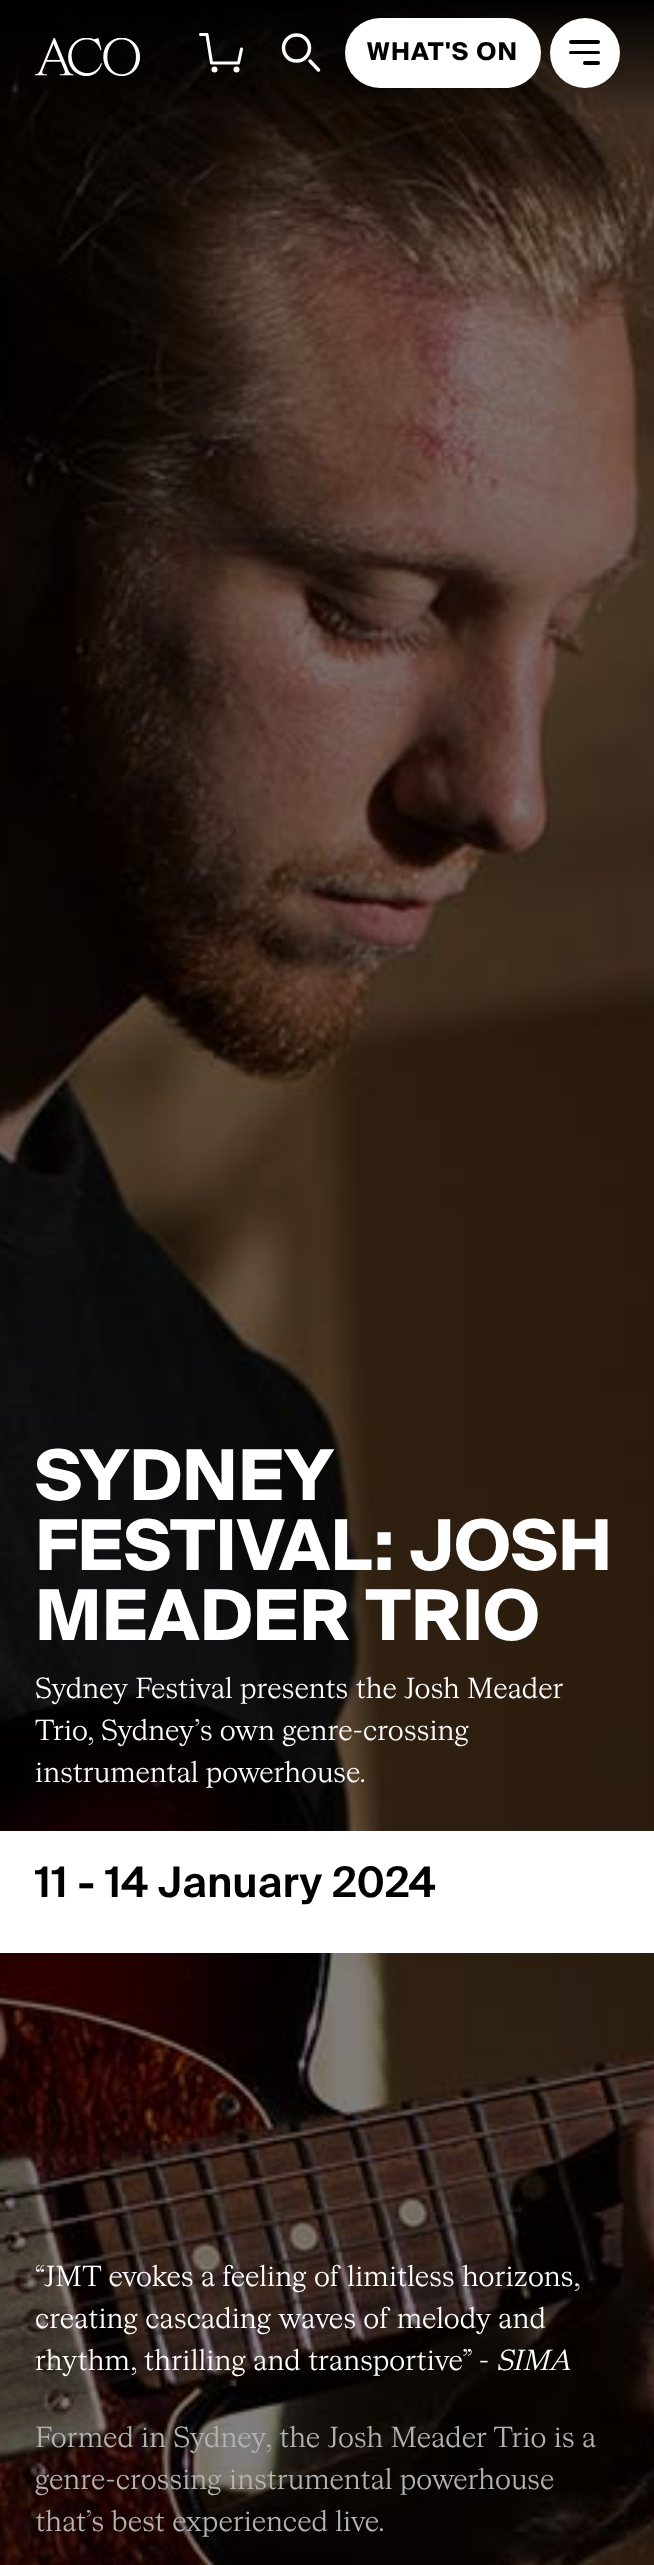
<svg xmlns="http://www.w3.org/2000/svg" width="654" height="2565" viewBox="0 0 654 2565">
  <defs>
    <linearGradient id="g1" gradientUnits="userSpaceOnUse" x1="327" y1="0" x2="327" y2="114"><stop offset="0" stop-color="#000000"/><stop offset="1" stop-color="#000000" stop-opacity="0"/></linearGradient>
  </defs>
  <rect width="100%" height="100%" fill="#000000"/>
  <image x="0" y="1" width="654" height="2564" href="img2.png"/>
  <rect x="0" y="1" width="654" height="109" fill="url(#g1)"/>
  <image x="35" y="38" width="105" height="38" href="img1.png"/>
  <circle cx="214.5" cy="69.5" r="3" fill="#ffffff"/>
  <circle cx="236.5" cy="69.5" r="3" fill="#ffffff"/>
  <path d="M200.5 34.5H207L211.5 63H238.5L241.5 49" fill="none" stroke="#ffffff" stroke-width="3.1" stroke-linecap="round" stroke-linejoin="round"/>
  <circle cx="296.5" cy="48" r="13" fill="none" stroke="#ffffff" stroke-width="3.5"/>
  <path d="M310 61L318.5 70" fill="none" stroke="#ffffff" stroke-width="3.5" stroke-linecap="round"/>
  <rect x="345" y="18" width="196" height="70" rx="35" fill="#ffffff"/>
  <text x="367" y="60" font-family="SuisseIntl" font-size="24.5" font-weight="bold" letter-spacing="1.5" fill="#000000">WHAT'S ON</text>
  <circle cx="585" cy="53" r="35" fill="#ffffff"/>
  <rect x="569" y="40" width="31" height="4" rx="2" fill="#000000"/>
  <rect x="569" y="51" width="31" height="3" rx="1.5" fill="#000000"/>
  <rect x="583" y="61" width="17" height="4" rx="2" fill="#000000"/>
  <text x="35" y="1500" font-family="SuisseIntl" font-size="70" font-weight="bold" letter-spacing="0.35" fill="#ffffff">SYDNEY</text>
  <text x="35" y="1570" font-family="SuisseIntl" font-size="70" font-weight="bold" letter-spacing="0.35" fill="#ffffff">FESTIVAL: JOSH</text>
  <text x="35" y="1640" font-family="SuisseIntl" font-size="70" font-weight="bold" letter-spacing="0.35" fill="#ffffff">MEADER TRIO</text>
  <text x="35" y="1698" font-family="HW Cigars" font-size="28" letter-spacing="0.35" fill="#ffffff">Sydney Festival presents the Josh Meader</text>
  <text x="35" y="1740" font-family="HW Cigars" font-size="28" letter-spacing="0.35" fill="#ffffff">Trio, Sydney’s own genre-crossing</text>
  <text x="35" y="1782" font-family="HW Cigars" font-size="28" letter-spacing="0.35" fill="#ffffff">instrumental powerhouse.</text>
  <rect x="0" y="1831" width="654" height="122" fill="#ffffff"/>
  <text x="35" y="1897" font-family="SuisseIntl" font-size="42" font-weight="600" letter-spacing="0.35" fill="#000000">11 - 14 January 2024</text>
  <text x="35" y="2286" font-family="HW Cigars" font-size="28" letter-spacing="0.35" fill="#ffffff">“JMT evokes a feeling of limitless horizons,</text>
  <text x="35" y="2328" font-family="HW Cigars" font-size="28" letter-spacing="0.35" fill="#ffffff">creating cascading waves of melody and</text>
  <text x="35" y="2370" font-family="HW Cigars" font-size="28" letter-spacing="0.35" fill="#ffffff">rhythm, thrilling and transportive” -</text>
  <text x="496" y="2370" font-family="HW Cigars" font-size="28" font-style="italic" letter-spacing="0.35" fill="#ffffff">SIMA</text>
  <text x="35" y="2447" font-family="HW Cigars" font-size="28" letter-spacing="0.35" fill="#b3b3b3">Formed in Sydney, the Josh Meader Trio is a</text>
  <text x="35" y="2489" font-family="HW Cigars" font-size="28" letter-spacing="0.35" fill="#b3b3b3">genre-crossing instrumental powerhouse</text>
  <text x="35" y="2531" font-family="HW Cigars" font-size="28" letter-spacing="0.35" fill="#b3b3b3">that’s best experienced live.</text>
</svg>
